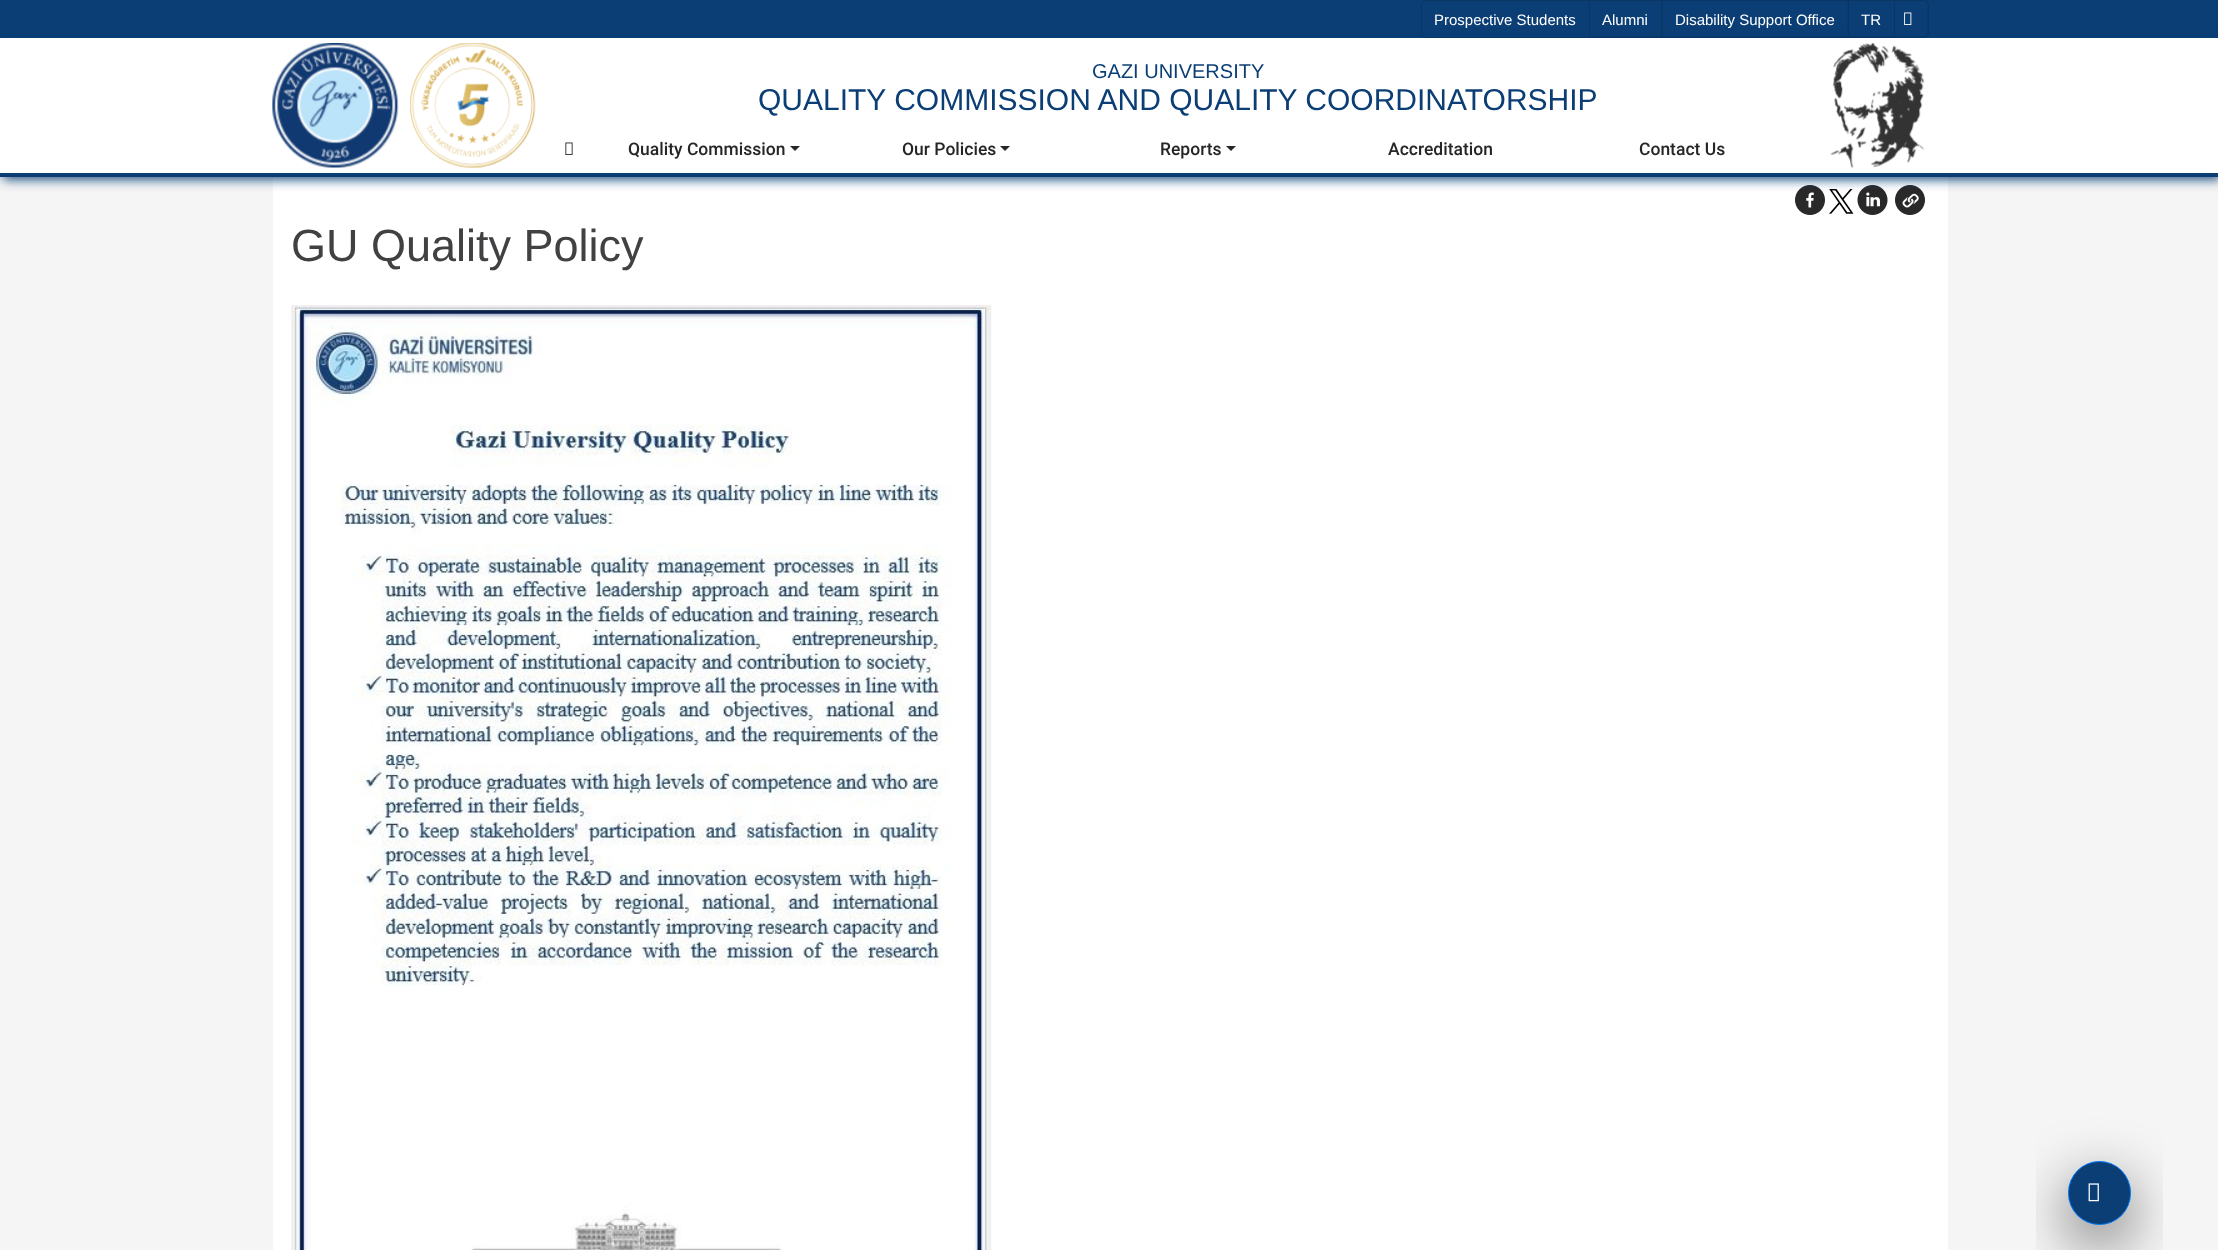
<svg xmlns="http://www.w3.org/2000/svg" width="2218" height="1250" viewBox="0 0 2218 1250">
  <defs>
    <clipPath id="clip1"><path d="M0 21H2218V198H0ZM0 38H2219V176H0Z" clip-rule="evenodd"/></clipPath>
    <filter id="blur1" x="-50%" y="-200%" width="200%" height="500%"><feGaussianBlur stdDeviation="6"/></filter>
    <filter id="blur2" x="-50%" y="-200%" width="200%" height="500%"><feGaussianBlur stdDeviation="30"/></filter>
  </defs>
  <rect width="100%" height="100%" fill="#ffffff"/>
  <rect x="0" y="0" width="2218" height="38" fill="#0b3e75"/>
  <path d="M1426 .5H1589.5V37.5H1426C1423.5 37.5 1421.5 35.5 1421.5 33V5C1421.5 2.5 1423.5 .5 1426 .5Z" fill="none" stroke="#0a3666"/>
  <text x="1434" y="25" font-family="Liberation Sans" font-size="15" fill="#ffffff">Prospective Students</text>
  <path d="M1590 0H1662L1661 1H1590Z" fill="#0a3666"/>
  <path d="M1662.5 0V37.5L1661 36V1Z" fill="#0a3666"/>
  <path d="M1662 38H1590V36H1661Z" fill="#0a3666"/>
  <text x="1602" y="25" font-family="Liberation Sans" font-size="15" fill="#ffffff">Alumni</text>
  <path d="M1662 0H1849L1848 1H1662Z" fill="#000000" fill-opacity="0.12"/>
  <path d="M1849 0V37.5L1847.5 36V1Z" fill="#000000" fill-opacity="0.12"/>
  <path d="M1849 38H1662V36H1848Z" fill="#000000" fill-opacity="0.12"/>
  <text x="1675" y="25" font-family="Liberation Sans" font-size="15" fill="#ffffff">Disability Support Office</text>
  <path d="M1849 0H1895L1894 1H1849Z" fill="#0a3666"/>
  <path d="M1895 0V37.5L1894 36V1Z" fill="#000000" fill-opacity="0.12"/>
  <path d="M1895 38H1849V36H1894Z" fill="#0a3666"/>
  <text x="1861" y="25" font-family="Liberation Sans" font-size="15" fill="#ffffff">TR</text>
  <path d="M1895 0H1924C1926.5 0 1929 2 1929 5V32.5C1929 35.5 1926.5 37.5 1924 37.5H1895ZM1895 1H1924C1926 1 1927.5 3 1927.5 5V32.5C1927.5 34.5 1926 36 1924 36H1895Z" fill="#0a3666" fill-rule="evenodd"/>
  <image x="1904" y="12" width="8" height="13" href="img1.png"/>
  <rect x="0" y="177" width="2218" height="1073" fill="#f5f5f5"/>
  <rect x="273" y="177" width="1675" height="1073" fill="#ffffff"/>
  <image x="1795" y="185" width="30" height="30" href="img6.png"/>
  <image x="1829" y="189" width="25" height="25" href="img7.png"/>
  <image x="1857" y="185" width="31" height="30" href="img8.png"/>
  <image x="1895" y="185" width="30" height="30" href="img9.png"/>
  <g clip-path="url(#clip1)">
    <rect x="3" y="40" width="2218" height="139" fill="#0b3e75" filter="url(#blur1)"/>
  </g>
  <rect x="0" y="173" width="2218" height="4" fill="#0b3e75"/>
  <image x="272" y="43" width="127" height="125" href="img2.png"/>
  <image x="410" y="43" width="126" height="125" href="img3.png"/>
  <text x="1092" y="78" font-family="Liberation Sans" font-size="20" fill="#0b3e75">GAZI UNIVERSITY</text>
  <text x="758" y="110" font-family="Liberation Sans" font-size="30" fill="#0b3e75">QUALITY COMMISSION AND QUALITY COORDINATORSHIP</text>
  <image x="565" y="142" width="8" height="13" href="img4.png"/>
  <text x="628" y="155" font-family="Roboto" font-size="17.5" font-weight="500" fill="#262626">Quality Commission</text>
  <path d="M790 146H800L795 151Z" fill="#262626"/>
  <text x="902" y="155" font-family="Roboto" font-size="17.5" font-weight="500" fill="#262626">Our Policies</text>
  <path d="M1000 146H1010L1005 151Z" fill="#262626"/>
  <text x="1160" y="155" font-family="Roboto" font-size="17.5" font-weight="500" fill="#262626">Reports</text>
  <path d="M1226 146H1236L1231 151Z" fill="#262626"/>
  <text x="1388" y="155" font-family="Roboto" font-size="17.5" font-weight="500" fill="#262626">Accreditation</text>
  <text x="1639" y="155" font-family="Roboto" font-size="17.5" font-weight="500" fill="#262626">Contact Us</text>
  <image x="1830" y="43" width="95" height="125" href="img5.png"/>
  <text x="291" y="261" font-family="Liberation Sans" font-size="45" fill="#414042">GU Quality Policy</text>
  <image x="291" y="305" width="701" height="945" href="img10.png"/>
  <rect x="2068" y="1181" width="63" height="64" rx="31.5" fill="#000000" fill-opacity="0.6" filter="url(#blur2)"/>
  <rect x="2068.5" y="1161.5" width="62" height="63" rx="31" fill="#0b3e75" stroke="#007bff"/>
  <image x="2088" y="1183" width="11" height="19" href="img11.png"/>
</svg>
